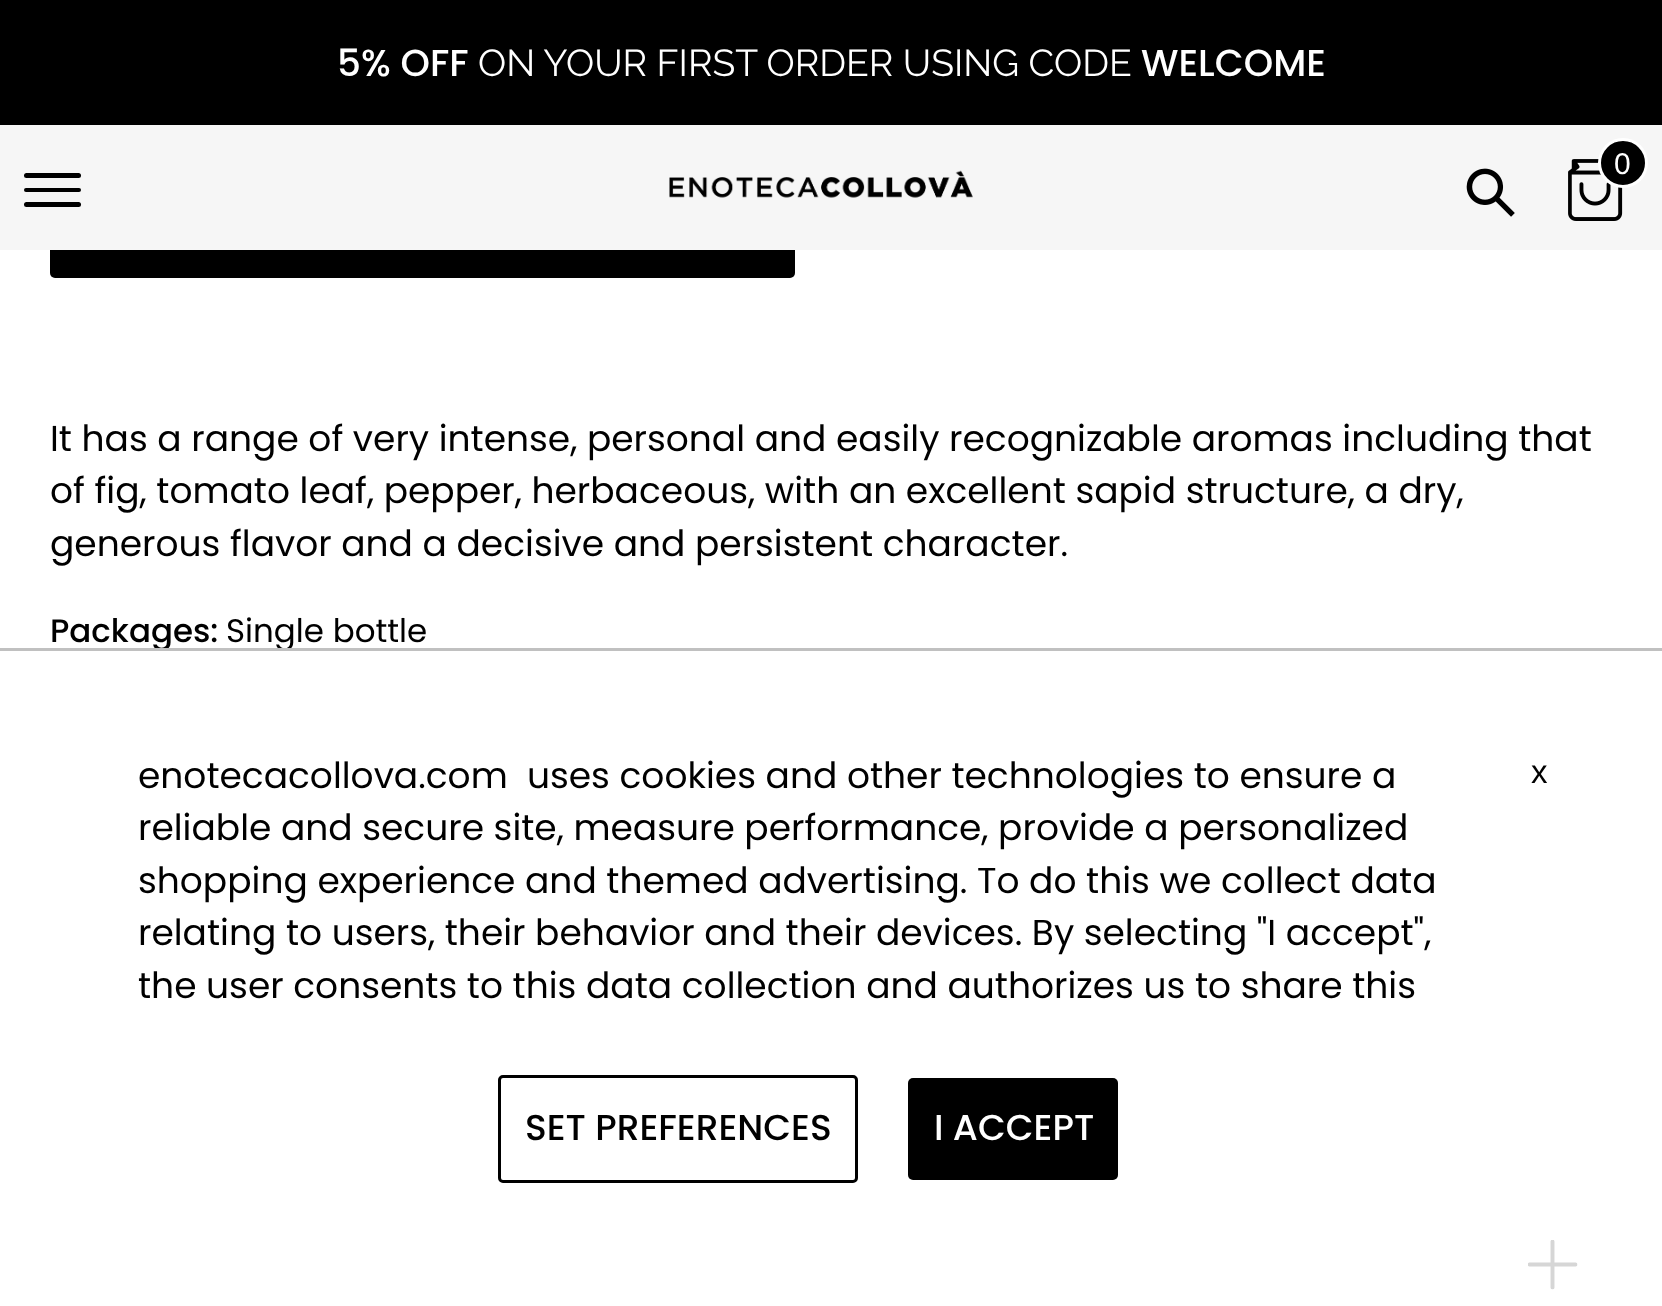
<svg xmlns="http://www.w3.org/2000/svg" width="1662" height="1306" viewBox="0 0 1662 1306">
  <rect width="100%" height="100%" fill="#ffffff"/>
  <rect x="0" y="0" width="1662" height="125" fill="#000000"/>
  <text x="337" y="76" font-family="Poppins" font-size="37.5" font-weight="500" fill="#ffffff">5% OFF</text>
  <text x="478" y="76" font-family="Raleway" font-size="37.5" fill="#ffffff">ON YOUR FIRST ORDER USING CODE</text>
  <text x="1141" y="76" font-family="Poppins" font-size="37.5" font-weight="500" fill="#ffffff">WELCOME</text>
  <rect x="50" y="125" width="745" height="153" rx="5" fill="#000000"/>
  <rect x="0" y="125" width="1662" height="125" fill="#f6f6f6"/>
  <image x="1568" y="159" width="55" height="62" href="img1.png"/>
  <circle cx="1623" cy="163" r="23.5" fill="#000000" stroke="#ffffff" stroke-width="3"/>
  <text x="1614" y="174" font-family="Liberation Sans" font-size="30" fill="#ffffff">0</text>
  <rect x="24" y="173" width="57" height="5" rx="2.5" fill="#000000"/>
  <rect x="24" y="188" width="57" height="4" rx="2" fill="#000000"/>
  <rect x="24" y="202" width="57" height="5" rx="2.5" fill="#000000"/>
  <image x="669" y="170" width="304" height="28" href="img2.png"/>
  <image x="1466" y="168" width="49" height="49" href="img3.png"/>
  <text x="50" y="451" font-family="Poppins" font-size="36" fill="#000000">It has a range of very intense, personal and easily recognizable aromas including that</text>
  <text x="50" y="503" font-family="Poppins" font-size="36" fill="#000000">of fig, tomato leaf, pepper, herbaceous, with an excellent sapid structure, a dry,</text>
  <text x="50" y="556" font-family="Poppins" font-size="36" fill="#000000">generous flavor and a decisive and persistent character.</text>
  <text x="50" y="642" font-family="Poppins" font-size="32.5" font-weight="500" fill="#000000">Packages:</text>
  <text x="226" y="642" font-family="Poppins" font-size="32.5" fill="#000000">Single bottle</text>
  <image x="1528" y="1240" width="50" height="50" href="img4.png"/>
  <rect x="1528" y="1240" width="50" height="50" fill="#ffffff" fill-opacity="0.8"/>
  <rect x="0" y="648" width="1662" height="3" fill="#c0c0c0"/>
  <text x="138" y="788" font-family="Poppins" font-size="36" fill="#000000" xml:space="preserve">enotecacollova.com  uses cookies and other technologies to ensure a</text>
  <text x="138" y="840" font-family="Poppins" font-size="36" fill="#000000">reliable and secure site, measure performance, provide a personalized</text>
  <text x="138" y="893" font-family="Poppins" font-size="36" fill="#000000">shopping experience and themed advertising. To do this we collect data</text>
  <text x="138" y="945" font-family="Poppins" font-size="36" fill="#000000">relating to users, their behavior and their devices. By selecting "I accept",</text>
  <text x="138" y="998" font-family="Poppins" font-size="36" fill="#000000">the user consents to this data collection and authorizes us to share this</text>
  <rect x="499.5" y="1076.5" width="357" height="105" rx="3.5" fill="none" stroke="#000000" stroke-width="3"/>
  <text x="525" y="1140" font-family="Poppins" font-size="36" font-weight="500" fill="#000000">SET PREFERENCES</text>
  <rect x="908" y="1078" width="210" height="102" rx="5" fill="#000000"/>
  <text x="934" y="1140" font-family="Poppins" font-size="36" font-weight="500" fill="#ffffff">I ACCEPT</text>
  <text x="1531" y="783" font-family="Liberation Sans" font-size="33" fill="#000000">x</text>
</svg>
